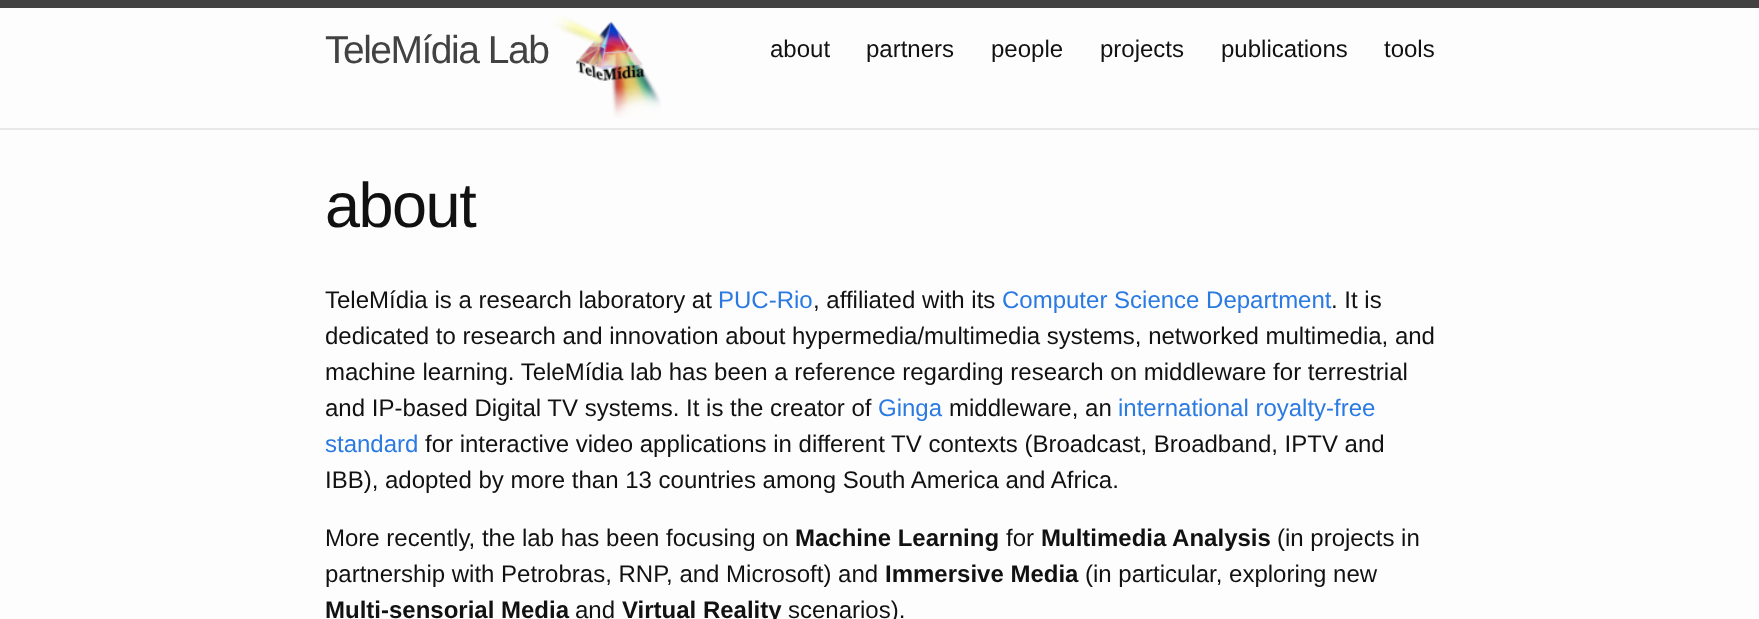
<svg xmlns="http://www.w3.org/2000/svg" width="1759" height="619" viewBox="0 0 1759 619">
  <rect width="100%" height="100%" fill="#fdfdfd"/>
  <rect x="0" y="0" width="1759" height="8" fill="#424242"/>
  <rect x="0" y="128" width="1759" height="2" fill="#e8e8e8"/>
  <text x="325" y="63" font-family="Liberation Sans" font-size="39" letter-spacing="-1.5" fill="#424242">TeleMídia Lab</text>
  <image x="553" y="16" width="108" height="102" href="img1.png"/>
  <text x="770" y="57" font-family="Liberation Sans" font-size="24" fill="#111111">about</text>
  <text x="866" y="57" font-family="Liberation Sans" font-size="24" fill="#111111">partners</text>
  <text x="991" y="57" font-family="Liberation Sans" font-size="24" fill="#111111">people</text>
  <text x="1100" y="57" font-family="Liberation Sans" font-size="24" fill="#111111">projects</text>
  <text x="1221" y="57" font-family="Liberation Sans" font-size="24" fill="#111111">publications</text>
  <text x="1384" y="57" font-family="Liberation Sans" font-size="24" fill="#111111">tools</text>
  <text x="325" y="227" font-family="Liberation Sans" font-size="63" letter-spacing="-1.5" fill="#111111">about</text>
  <text x="325" y="308" font-family="Liberation Sans" font-size="24" fill="#111111">TeleMídia is a research laboratory at</text>
  <text x="718" y="308" font-family="Liberation Sans" font-size="24" fill="#2a7ae2">PUC-Rio</text>
  <text x="813" y="308" font-family="Liberation Sans" font-size="24" fill="#111111">, affiliated with its</text>
  <text x="1002" y="308" font-family="Liberation Sans" font-size="24" fill="#2a7ae2">Computer Science Department</text>
  <text x="1331" y="308" font-family="Liberation Sans" font-size="24" fill="#111111">. It is</text>
  <text x="325" y="344" font-family="Liberation Sans" font-size="24" fill="#111111">dedicated to research and innovation about hypermedia/multimedia systems, networked multimedia, and</text>
  <text x="325" y="380" font-family="Liberation Sans" font-size="24" fill="#111111">machine learning. TeleMídia lab has been a reference regarding research on middleware for terrestrial</text>
  <text x="325" y="416" font-family="Liberation Sans" font-size="24" fill="#111111">and IP-based Digital TV systems. It is the creator of</text>
  <text x="878" y="416" font-family="Liberation Sans" font-size="24" fill="#2a7ae2">Ginga</text>
  <text x="949" y="416" font-family="Liberation Sans" font-size="24" fill="#111111">middleware, an</text>
  <text x="1118" y="416" font-family="Liberation Sans" font-size="24" fill="#2a7ae2">international royalty-free</text>
  <text x="325" y="452" font-family="Liberation Sans" font-size="24" fill="#2a7ae2">standard</text>
  <text x="425" y="452" font-family="Liberation Sans" font-size="24" fill="#111111">for interactive video applications in different TV contexts (Broadcast, Broadband, IPTV and</text>
  <text x="325" y="488" font-family="Liberation Sans" font-size="24" fill="#111111">IBB), adopted by more than 13 countries among South America and Africa.</text>
  <text x="325" y="546" font-family="Liberation Sans" font-size="24" fill="#111111">More recently, the lab has been focusing on</text>
  <text x="795" y="546" font-family="Liberation Sans" font-size="24" font-weight="bold" fill="#111111">Machine Learning</text>
  <text x="1006" y="546" font-family="Liberation Sans" font-size="24" fill="#111111">for</text>
  <text x="1041" y="546" font-family="Liberation Sans" font-size="24" font-weight="bold" fill="#111111">Multimedia Analysis</text>
  <text x="1277" y="546" font-family="Liberation Sans" font-size="24" fill="#111111">(in projects in</text>
  <text x="325" y="582" font-family="Liberation Sans" font-size="24" fill="#111111">partnership with Petrobras, RNP, and Microsoft) and</text>
  <text x="885" y="582" font-family="Liberation Sans" font-size="24" font-weight="bold" fill="#111111">Immersive Media</text>
  <text x="1085" y="582" font-family="Liberation Sans" font-size="24" fill="#111111">(in particular, exploring new</text>
  <text x="325" y="618" font-family="Liberation Sans" font-size="24" font-weight="bold" fill="#111111">Multi-sensorial Media</text>
  <text x="575" y="618" font-family="Liberation Sans" font-size="24" fill="#111111">and</text>
  <text x="622" y="618" font-family="Liberation Sans" font-size="24" font-weight="bold" fill="#111111">Virtual Reality</text>
  <text x="788" y="618" font-family="Liberation Sans" font-size="24" fill="#111111">scenarios).</text>
</svg>
